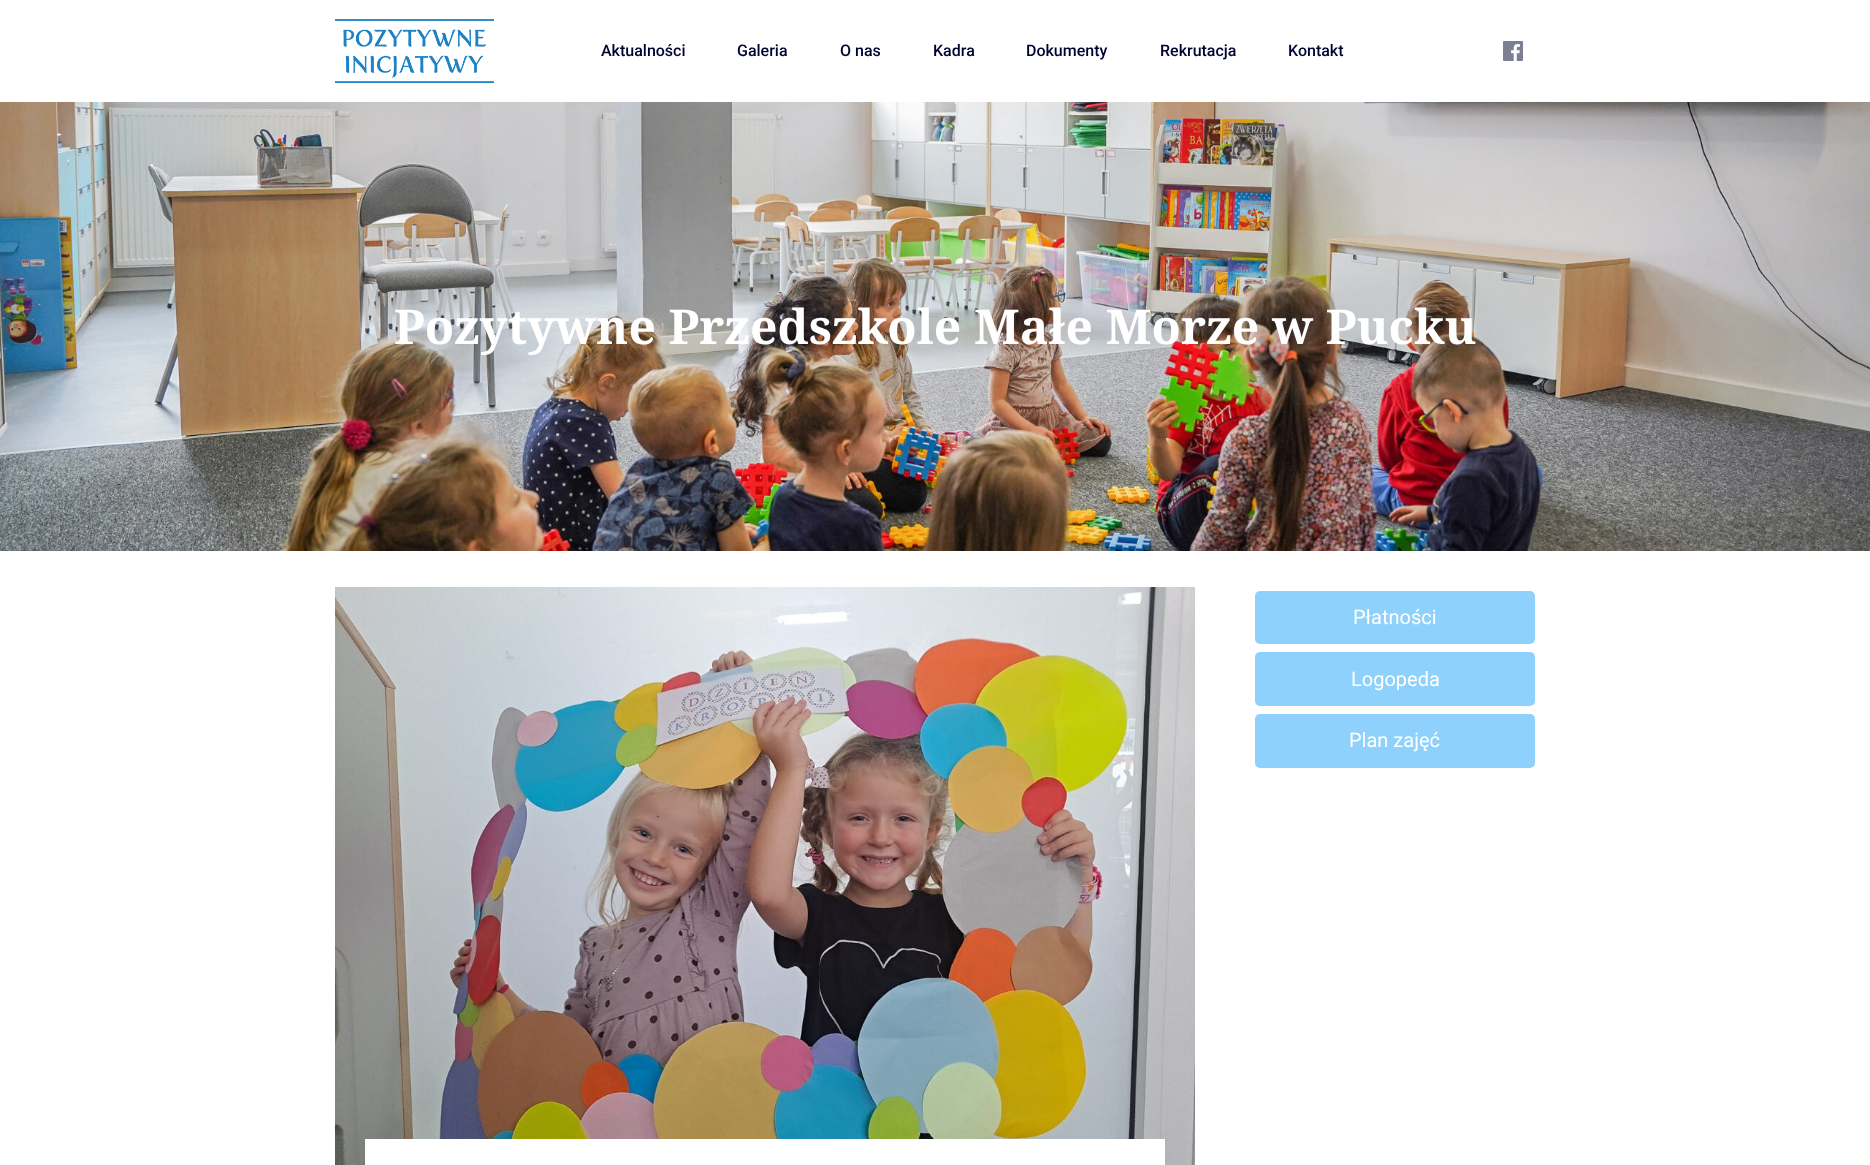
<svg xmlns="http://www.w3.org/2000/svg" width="1870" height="1165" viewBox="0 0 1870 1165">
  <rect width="100%" height="100%" fill="#ffffff"/>
  <image x="335" y="19" width="159" height="64" href="img1.png"/>
  <text x="601" y="56" font-family="Roboto" font-size="16" font-weight="500" fill="#000232">Aktualności</text>
  <text x="737" y="56" font-family="Roboto" font-size="16" font-weight="500" fill="#000232">Galeria</text>
  <text x="840" y="56" font-family="Roboto" font-size="16" font-weight="500" fill="#000232">O nas</text>
  <text x="933" y="56" font-family="Roboto" font-size="16" font-weight="500" fill="#000232">Kadra</text>
  <text x="1026" y="56" font-family="Roboto" font-size="16" font-weight="500" fill="#000232">Dokumenty</text>
  <text x="1160" y="56" font-family="Roboto" font-size="16" font-weight="500" fill="#000232">Rekrutacja</text>
  <text x="1288" y="56" font-family="Roboto" font-size="16" font-weight="500" fill="#000232">Kontakt</text>
  <image x="1503" y="41" width="20" height="20" href="img2.png"/>
  <image x="0" y="102" width="1870" height="449" href="img3.png"/>
  <text x="394" y="344" font-family="Noto Serif" font-size="48" font-weight="bold" letter-spacing="0.1" fill="#ffffff">Pozytywne Przedszkole Małe Morze w Pucku</text>
  <image x="335" y="587" width="860" height="578" href="img4.png"/>
  <rect x="365" y="1139" width="800" height="26" fill="#ffffff"/>
  <rect x="1255" y="591" width="280" height="53" rx="5" fill="#8ed1fc"/>
  <text x="1353" y="624" font-family="Roboto" font-size="20" fill="#ffffff">Płatności</text>
  <rect x="1255" y="652" width="280" height="54" rx="5" fill="#8ed1fc"/>
  <text x="1351" y="686" font-family="Roboto" font-size="20" fill="#ffffff">Logopeda</text>
  <rect x="1255" y="714" width="280" height="54" rx="5" fill="#8ed1fc"/>
  <text x="1349" y="747" font-family="Roboto" font-size="20" fill="#ffffff">Plan zajęć</text>
</svg>
